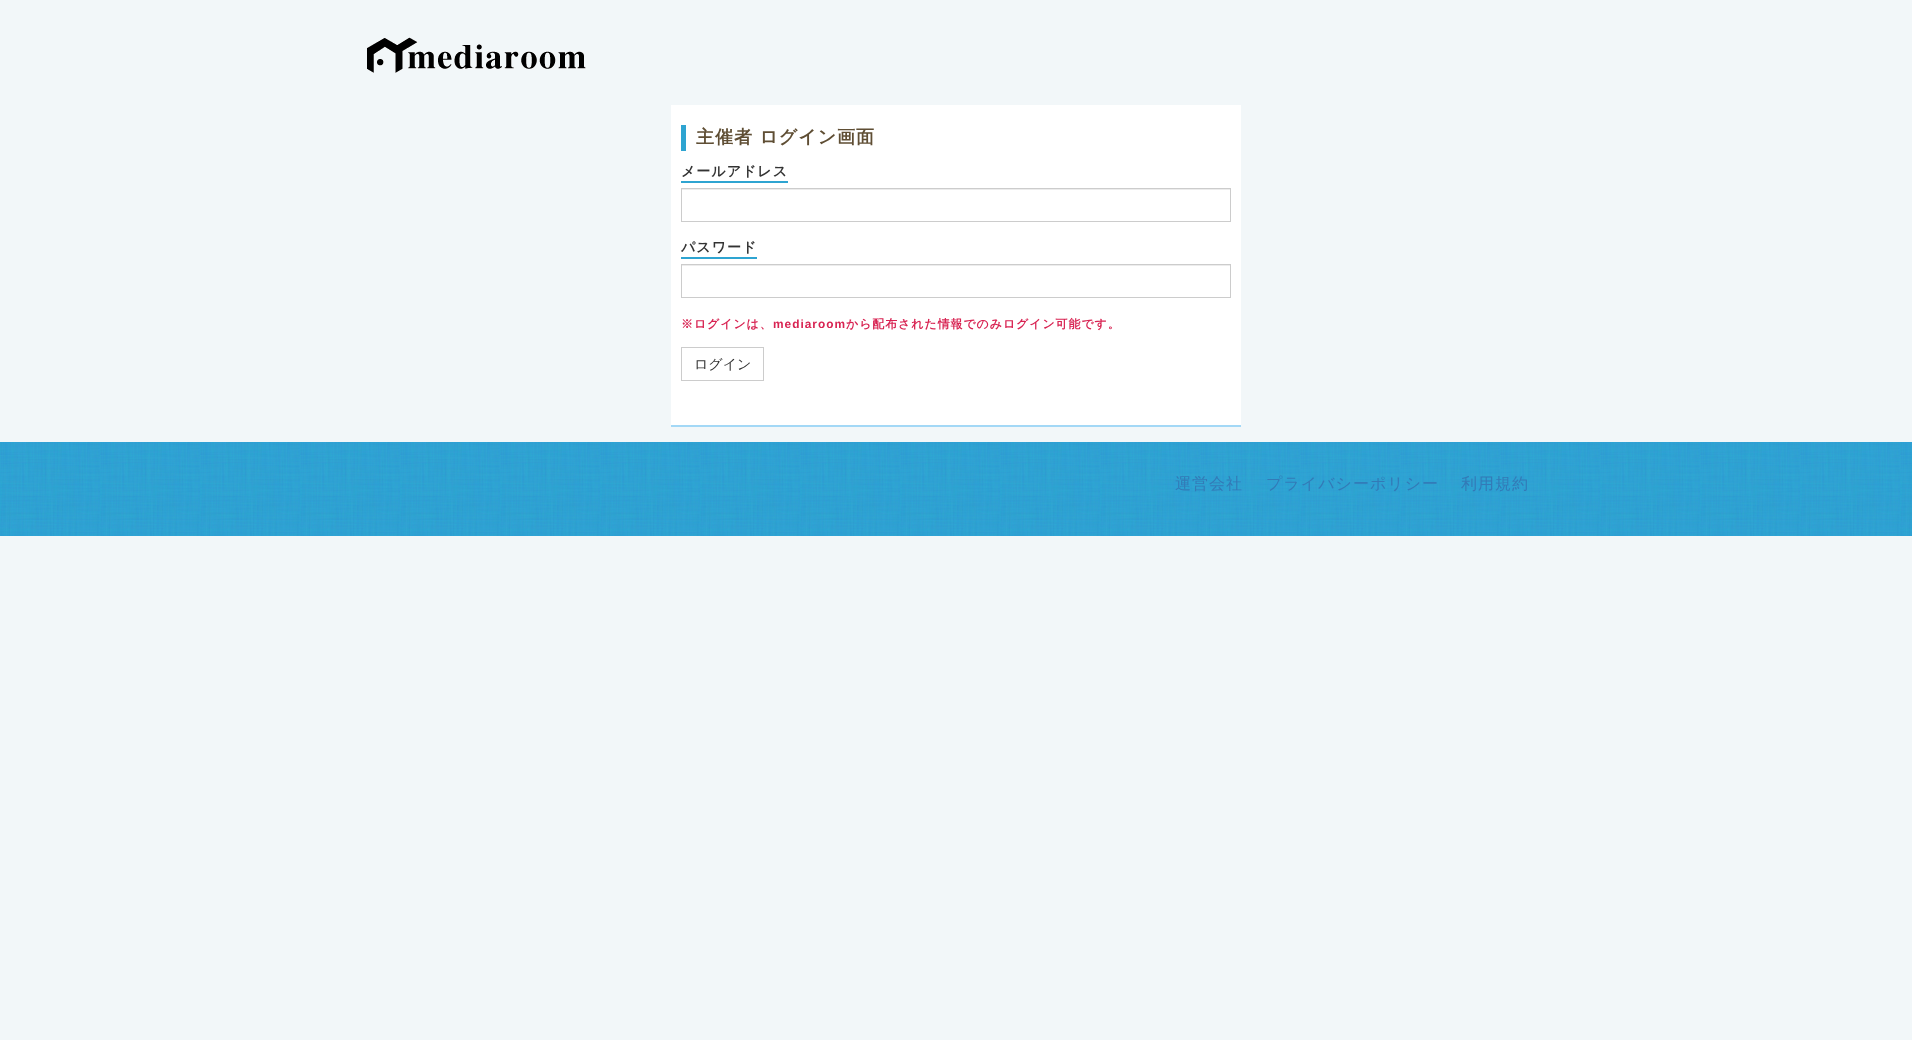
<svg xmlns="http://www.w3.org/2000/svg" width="1912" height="1040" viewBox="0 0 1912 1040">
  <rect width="100%" height="100%" fill="#f2f7f9"/>
  <image x="367" y="37" width="219" height="36" href="img1.png"/>
  <rect x="671" y="105" width="570" height="320" fill="#ffffff"/>
  <rect x="671" y="425" width="570" height="2" fill="#a3d8f6"/>
  <rect x="681" y="125" width="5" height="26" fill="#2ea4d1"/>
  <text x="696" y="143" font-family="WenQuanYi Zen Hei" font-size="18" font-weight="bold" letter-spacing="1" fill="#5f4e34">主催者 ログイン画面</text>
  <rect x="681" y="181" width="107" height="2" fill="#2ea4d1"/>
  <text x="681" y="176" font-family="WenQuanYi Zen Hei" font-size="14" font-weight="bold" letter-spacing="1" fill="#333333">メールアドレス</text>
  <rect x="682" y="189" width="548" height="1" fill="#ececec"/>
  <rect x="681.5" y="188.5" width="549" height="33" fill="none" stroke="#cccccc"/>
  <rect x="681" y="257" width="76" height="2" fill="#2ea4d1"/>
  <text x="681" y="252" font-family="WenQuanYi Zen Hei" font-size="14" font-weight="bold" letter-spacing="1" fill="#333333">パスワード</text>
  <rect x="682" y="265" width="548" height="1" fill="#ececec"/>
  <rect x="681.5" y="264.5" width="549" height="33" fill="none" stroke="#cccccc"/>
  <text x="681" y="328" font-family="WenQuanYi Zen Hei" font-size="11.9" font-weight="bold" letter-spacing="1" fill="#d82352">※ログインは、</text>
  <text x="773" y="328" font-family="Liberation Sans" font-size="11.9" font-weight="bold" letter-spacing="1" fill="#d82352">mediaroom</text>
  <text x="846" y="328" font-family="WenQuanYi Zen Hei" font-size="11.9" font-weight="bold" letter-spacing="1" fill="#d82352">から配布された情報でのみログイン可能です。</text>
  <rect x="681.5" y="347.5" width="82" height="33" fill="none" stroke="#cccccc"/>
  <text x="694" y="369" font-family="WenQuanYi Zen Hei" font-size="14" font-weight="500" fill="#333333">ログイン</text>
  <image x="0" y="442" width="1912" height="94" href="img2.png"/>
  <text x="1175" y="489" font-family="WenQuanYi Zen Hei" font-size="16" font-weight="500" letter-spacing="1" fill="#337ab7">運営会社</text>
  <text x="1266" y="489" font-family="WenQuanYi Zen Hei" font-size="16" font-weight="500" letter-spacing="1" fill="#337ab7">プライバシーポリシー</text>
  <text x="1461" y="489" font-family="WenQuanYi Zen Hei" font-size="16" font-weight="500" letter-spacing="1" fill="#337ab7">利用規約</text>
</svg>
